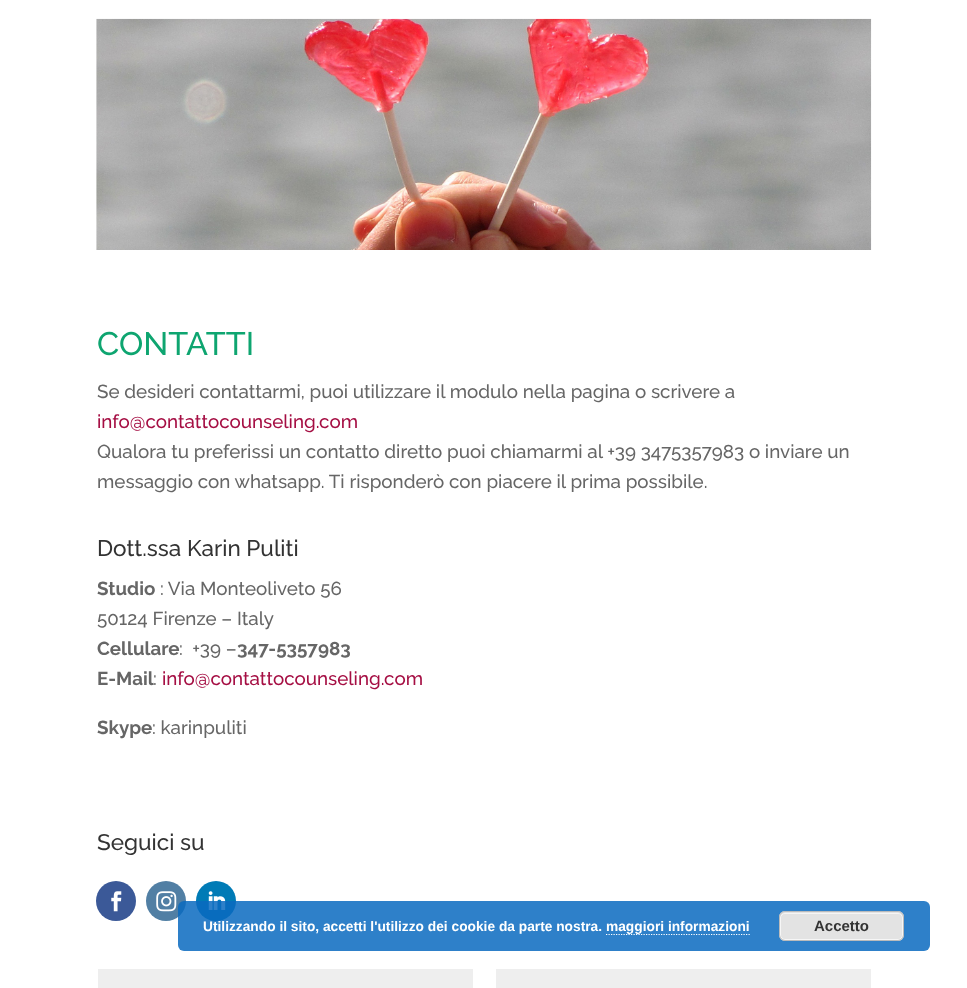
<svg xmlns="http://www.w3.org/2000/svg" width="967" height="988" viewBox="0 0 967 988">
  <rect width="100%" height="100%" fill="#ffffff"/>
  <image x="96" y="18" width="776" height="232" href="img1.png"/>
  <text x="97" y="355" font-family="Raleway" font-size="32.5" font-weight="500" fill="#0ea570">CONTATTI</text>
  <text x="97" y="398" font-family="Raleway" font-size="18.75" font-weight="500" fill="#666666">Se desideri contattarmi, puoi utilizzare il modulo nella pagina o scrivere a</text>
  <text x="97" y="428" font-family="Raleway" font-size="18.75" font-weight="500" fill="#a50e43">info@contattocounseling.com</text>
  <text x="97" y="458" font-family="Raleway" font-size="18.75" font-weight="500" fill="#666666">Qualora tu preferissi un contatto diretto puoi chiamarmi al +39 3475357983 o inviare un</text>
  <text x="97" y="488" font-family="Raleway" font-size="18.75" font-weight="500" fill="#666666">messaggio con whatsapp. Ti risponderò con piacere il prima possibile.</text>
  <text x="97" y="556" font-family="Raleway" font-size="22.5" font-weight="500" fill="#333333">Dott.ssa Karin Puliti</text>
  <text x="97" y="595" font-family="Raleway" font-size="18.75" font-weight="bold" fill="#666666">Studio</text>
  <text x="160" y="595" font-family="Raleway" font-size="18.75" font-weight="500" fill="#666666">: Via Monteoliveto 56</text>
  <text x="97" y="625" font-family="Raleway" font-size="18.75" font-weight="500" fill="#666666">50124 Firenze – Italy</text>
  <text x="97" y="655" font-family="Raleway" font-size="18.75" font-weight="bold" fill="#666666">Cellulare</text>
  <text x="179" y="655" font-family="Raleway" font-size="18.75" font-weight="500" fill="#666666" xml:space="preserve">:  +39 –</text>
  <text x="237" y="655" font-family="Raleway" font-size="18.75" font-weight="bold" fill="#666666">347-5357983</text>
  <text x="97" y="685" font-family="Raleway" font-size="18.75" font-weight="bold" fill="#666666">E-Mail</text>
  <text x="153" y="685" font-family="Raleway" font-size="18.75" font-weight="500" fill="#666666">:</text>
  <text x="162" y="685" font-family="Raleway" font-size="18.75" font-weight="500" fill="#a50e43">info@contattocounseling.com</text>
  <text x="97" y="734" font-family="Raleway" font-size="18.75" font-weight="bold" fill="#666666">Skype</text>
  <text x="152" y="734" font-family="Raleway" font-size="18.75" font-weight="500" fill="#666666">: karinpuliti</text>
  <text x="97" y="850" font-family="Raleway" font-size="22.5" font-weight="500" fill="#333333">Seguici su</text>
  <circle cx="116" cy="901" r="20" fill="#3b5998"/>
  <image x="111" y="891" width="11" height="21" href="img2.png"/>
  <circle cx="166" cy="901" r="20" fill="#517fa4"/>
  <image x="156" y="891" width="21" height="21" href="img3.png"/>
  <circle cx="216" cy="901" r="20" fill="#007bb6"/>
  <image x="208" y="891" width="18" height="19" href="img4.png"/>
  <rect x="98" y="969" width="375" height="19" fill="#eeeeee"/>
  <rect x="496" y="969" width="375" height="19" fill="#eeeeee"/>
  <rect x="178" y="901" width="752" height="50" rx="6" fill="#096abf" fill-opacity="0.85"/>
  <text x="203" y="931" font-family="Liberation Sans" font-size="13.75" font-weight="bold" fill="#ffffff">Utilizzando il sito, accetti l'utilizzo dei cookie da parte nostra.</text>
  <path d="M606 934.5H750" fill="none" stroke="#ffffff" stroke-width="1.2" stroke-dasharray="1.25 1.25"/>
  <text x="606" y="931" font-family="Liberation Sans" font-size="13.75" font-weight="bold" fill="#ffffff">maggiori informazioni</text>
  <rect x="779" y="911" width="125" height="30" rx="6" fill="#e3e3e3"/>
  <rect x="780.5" y="913.5" width="122" height="26" rx="4.5" fill="none" stroke="#f6f6f6"/>
  <rect x="779.5" y="911.5" width="124" height="29" rx="5.5" fill="none" stroke="#bbbbbb"/>
  <text x="814" y="931" font-family="Liberation Sans" font-size="15" font-weight="bold" fill="#333333">Accetto</text>
</svg>
